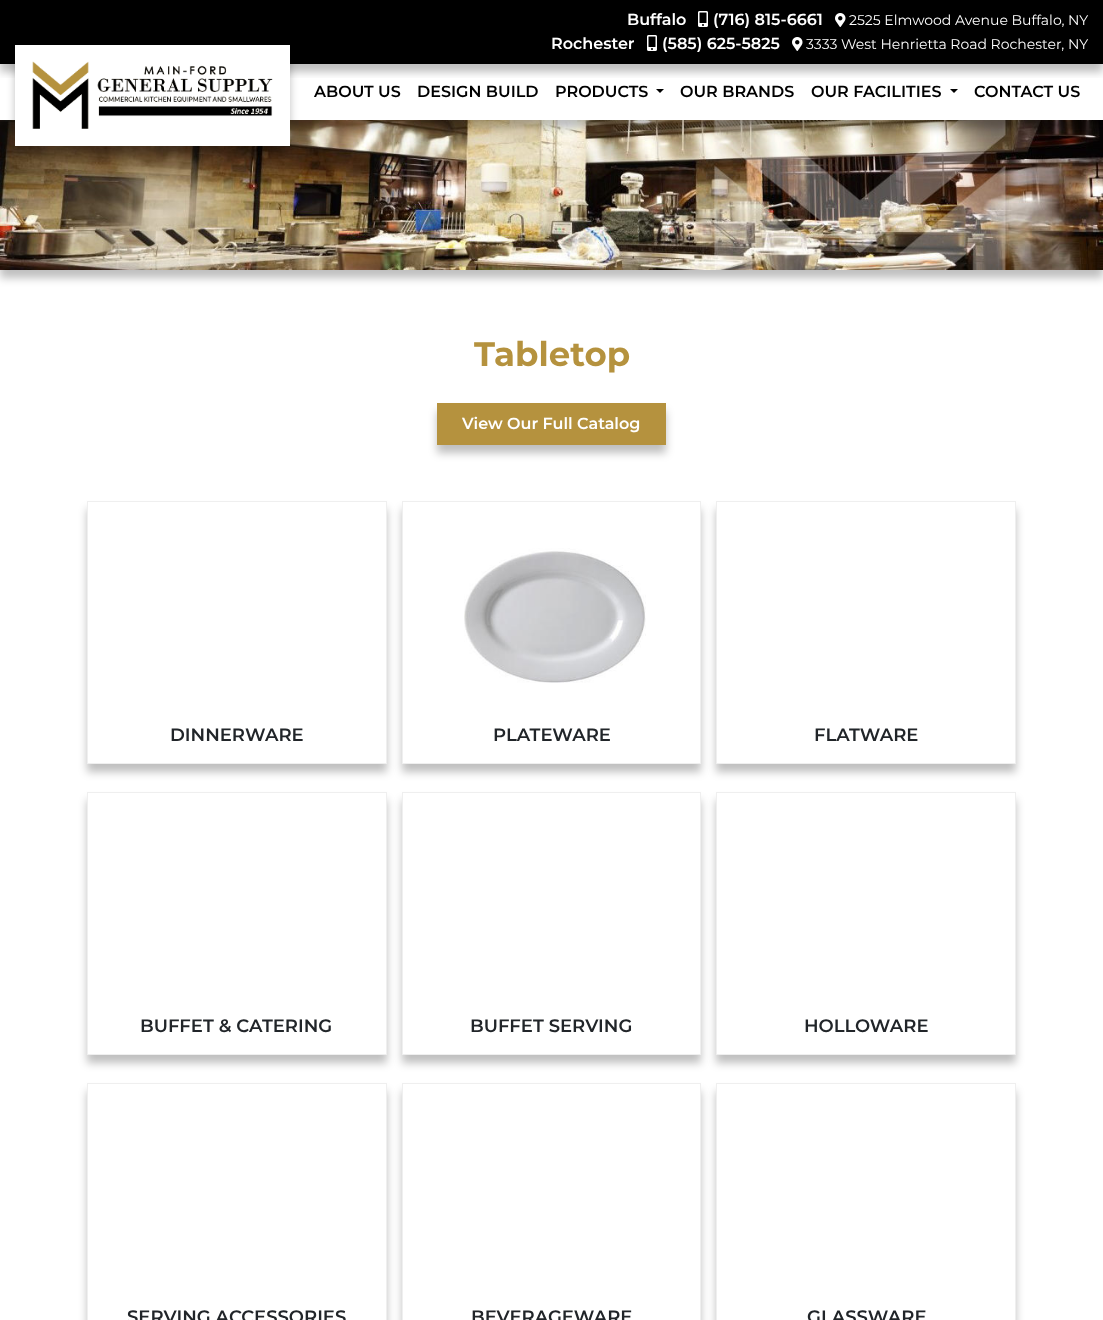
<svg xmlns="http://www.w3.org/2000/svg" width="1103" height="1320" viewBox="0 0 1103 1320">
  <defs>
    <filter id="blur1" x="-50%" y="-200%" width="200%" height="500%"><feGaussianBlur stdDeviation="4"/></filter>
    <clipPath id="clip1"><rect x="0" y="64" width="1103" height="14"/></clipPath>
    <clipPath id="clip2"><path d="M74 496H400V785H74ZM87 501H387V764H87Z" clip-rule="evenodd"/></clipPath>
    <clipPath id="clip3"><path d="M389 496H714V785H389ZM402 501H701V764H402Z" clip-rule="evenodd"/></clipPath>
    <clipPath id="clip4"><path d="M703 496H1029V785H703ZM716 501H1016V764H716Z" clip-rule="evenodd"/></clipPath>
    <clipPath id="clip5"><path d="M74 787H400V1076H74ZM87 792H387V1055H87Z" clip-rule="evenodd"/></clipPath>
    <clipPath id="clip6"><path d="M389 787H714V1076H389ZM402 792H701V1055H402Z" clip-rule="evenodd"/></clipPath>
    <clipPath id="clip7"><path d="M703 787H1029V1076H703ZM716 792H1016V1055H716Z" clip-rule="evenodd"/></clipPath>
    <clipPath id="clip8"><path d="M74 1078H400V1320H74ZM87 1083H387V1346H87Z" clip-rule="evenodd"/></clipPath>
    <clipPath id="clip9"><path d="M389 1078H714V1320H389ZM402 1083H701V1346H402Z" clip-rule="evenodd"/></clipPath>
    <clipPath id="clip10"><path d="M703 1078H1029V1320H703ZM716 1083H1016V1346H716Z" clip-rule="evenodd"/></clipPath>
  </defs>
  <rect width="100%" height="100%" fill="#000000"/>
  <rect x="0" y="270" width="1103" height="1050" fill="#ffffff"/>
  <rect x="0" y="128" width="1103" height="150" fill="#000000" fill-opacity="0.25" filter="url(#blur1)"/>
  <image x="0" y="120" width="1103" height="150" href="img4.png"/>
  <rect x="0" y="72" width="1103" height="56" fill="#000000" fill-opacity="0.25" filter="url(#blur1)"/>
  <rect x="0" y="64" width="1103" height="56" fill="#ffffff"/>
  <g clip-path="url(#clip1)">
    <rect x="0" y="8" width="1103" height="64" fill="#000000" fill-opacity="0.25" filter="url(#blur1)"/>
  </g>
  <text x="627" y="25" font-family="Montserrat" font-size="16" font-weight="600" fill="#ffffff">Buffalo</text>
  <image x="698" y="11" width="10" height="16" href="img1.png"/>
  <text x="713" y="25" font-family="Montserrat" font-size="16" font-weight="600" fill="#ffffff">(716) 815-6661</text>
  <image x="835" y="13" width="11" height="14" href="img2.png"/>
  <text x="849" y="25" font-family="Montserrat" font-size="14" fill="#ffffff">2525 Elmwood Avenue Buffalo, NY</text>
  <text x="551" y="49" font-family="Montserrat" font-size="16" font-weight="600" fill="#ffffff">Rochester</text>
  <image x="647" y="35" width="10" height="16" href="img1.png"/>
  <text x="662" y="49" font-family="Montserrat" font-size="16" font-weight="600" fill="#ffffff">(585) 625-5825</text>
  <image x="792" y="37" width="11" height="14" href="img2.png"/>
  <text x="806" y="49" font-family="Montserrat" font-size="14" fill="#ffffff">3333 West Henrietta Road Rochester, NY</text>
  <rect x="15" y="53" width="275" height="101" fill="#000000" fill-opacity="0.25" filter="url(#blur1)"/>
  <rect x="15" y="45" width="275" height="101" fill="#ffffff"/>
  <image x="32" y="61" width="241" height="68" href="img3.png"/>
  <text x="314" y="97" font-family="Montserrat" font-size="16" font-weight="600" fill="#000000">ABOUT US</text>
  <text x="417" y="97" font-family="Montserrat" font-size="16" font-weight="600" fill="#000000">DESIGN BUILD</text>
  <text x="555" y="97" font-family="Montserrat" font-size="16" font-weight="600" fill="#000000">PRODUCTS</text>
  <path d="M656 89H664L660 93Z" fill="#000000"/>
  <text x="680" y="97" font-family="Montserrat" font-size="16" font-weight="600" fill="#000000">OUR BRANDS</text>
  <text x="811" y="97" font-family="Montserrat" font-size="16" font-weight="600" fill="#000000">OUR FACILITIES</text>
  <path d="M950 89H958L954 93Z" fill="#000000"/>
  <text x="974" y="97" font-family="Montserrat" font-size="16" font-weight="600" fill="#000000">CONTACT US</text>
  <text x="474" y="366" font-family="Montserrat" font-size="34" font-weight="bold" fill="#b5923e">Tabletop</text>
  <rect x="437" y="411" width="229" height="42" fill="#000000" fill-opacity="0.25" filter="url(#blur1)"/>
  <rect x="437" y="403" width="229" height="42" fill="#b5923e"/>
  <text x="462" y="429" font-family="Montserrat" font-size="16" font-weight="600" fill="#ffffff">View Our Full Catalog</text>
  <g clip-path="url(#clip2)">
    <rect x="87" y="509" width="300" height="263" fill="#000000" fill-opacity="0.25" filter="url(#blur1)"/>
  </g>
  <rect x="87.5" y="501.5" width="299" height="262" fill="none" stroke="#efefef"/>
  <text x="170" y="741" font-family="Montserrat" font-size="18" font-weight="600" fill="#212529">DINNERWARE</text>
  <g clip-path="url(#clip3)">
    <rect x="402" y="509" width="299" height="263" fill="#000000" fill-opacity="0.25" filter="url(#blur1)"/>
  </g>
  <rect x="402.5" y="501.5" width="298" height="262" fill="none" stroke="#efefef"/>
  <image x="464" y="548" width="182" height="135" href="img5.png"/>
  <text x="493" y="741" font-family="Montserrat" font-size="18" font-weight="600" fill="#212529">PLATEWARE</text>
  <g clip-path="url(#clip4)">
    <rect x="716" y="509" width="300" height="263" fill="#000000" fill-opacity="0.25" filter="url(#blur1)"/>
  </g>
  <rect x="716.5" y="501.5" width="299" height="262" fill="none" stroke="#efefef"/>
  <text x="814" y="741" font-family="Montserrat" font-size="18" font-weight="600" fill="#212529">FLATWARE</text>
  <g clip-path="url(#clip5)">
    <rect x="87" y="800" width="300" height="263" fill="#000000" fill-opacity="0.25" filter="url(#blur1)"/>
  </g>
  <rect x="87.5" y="792.5" width="299" height="262" fill="none" stroke="#efefef"/>
  <text x="140" y="1032" font-family="Montserrat" font-size="18" font-weight="600" fill="#212529">BUFFET &amp; CATERING</text>
  <g clip-path="url(#clip6)">
    <rect x="402" y="800" width="299" height="263" fill="#000000" fill-opacity="0.25" filter="url(#blur1)"/>
  </g>
  <rect x="402.5" y="792.5" width="298" height="262" fill="none" stroke="#efefef"/>
  <text x="470" y="1032" font-family="Montserrat" font-size="18" font-weight="600" fill="#212529">BUFFET SERVING</text>
  <g clip-path="url(#clip7)">
    <rect x="716" y="800" width="300" height="263" fill="#000000" fill-opacity="0.25" filter="url(#blur1)"/>
  </g>
  <rect x="716.5" y="792.5" width="299" height="262" fill="none" stroke="#efefef"/>
  <text x="804" y="1032" font-family="Montserrat" font-size="18" font-weight="600" fill="#212529">HOLLOWARE</text>
  <g clip-path="url(#clip8)">
    <rect x="87" y="1091" width="300" height="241" fill="#000000" fill-opacity="0.25" filter="url(#blur1)"/>
  </g>
  <rect x="87.5" y="1083.5" width="299" height="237" fill="none" stroke="#efefef"/>
  <text x="127" y="1323" font-family="Montserrat" font-size="18" font-weight="600" fill="#212529">SERVING ACCESSORIES</text>
  <g clip-path="url(#clip9)">
    <rect x="402" y="1091" width="299" height="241" fill="#000000" fill-opacity="0.25" filter="url(#blur1)"/>
  </g>
  <rect x="402.5" y="1083.5" width="298" height="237" fill="none" stroke="#efefef"/>
  <text x="471" y="1323" font-family="Montserrat" font-size="18" font-weight="600" fill="#212529">BEVERAGEWARE</text>
  <g clip-path="url(#clip10)">
    <rect x="716" y="1091" width="300" height="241" fill="#000000" fill-opacity="0.25" filter="url(#blur1)"/>
  </g>
  <rect x="716.5" y="1083.5" width="299" height="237" fill="none" stroke="#efefef"/>
  <text x="807" y="1323" font-family="Montserrat" font-size="18" font-weight="600" fill="#212529">GLASSWARE</text>
</svg>
